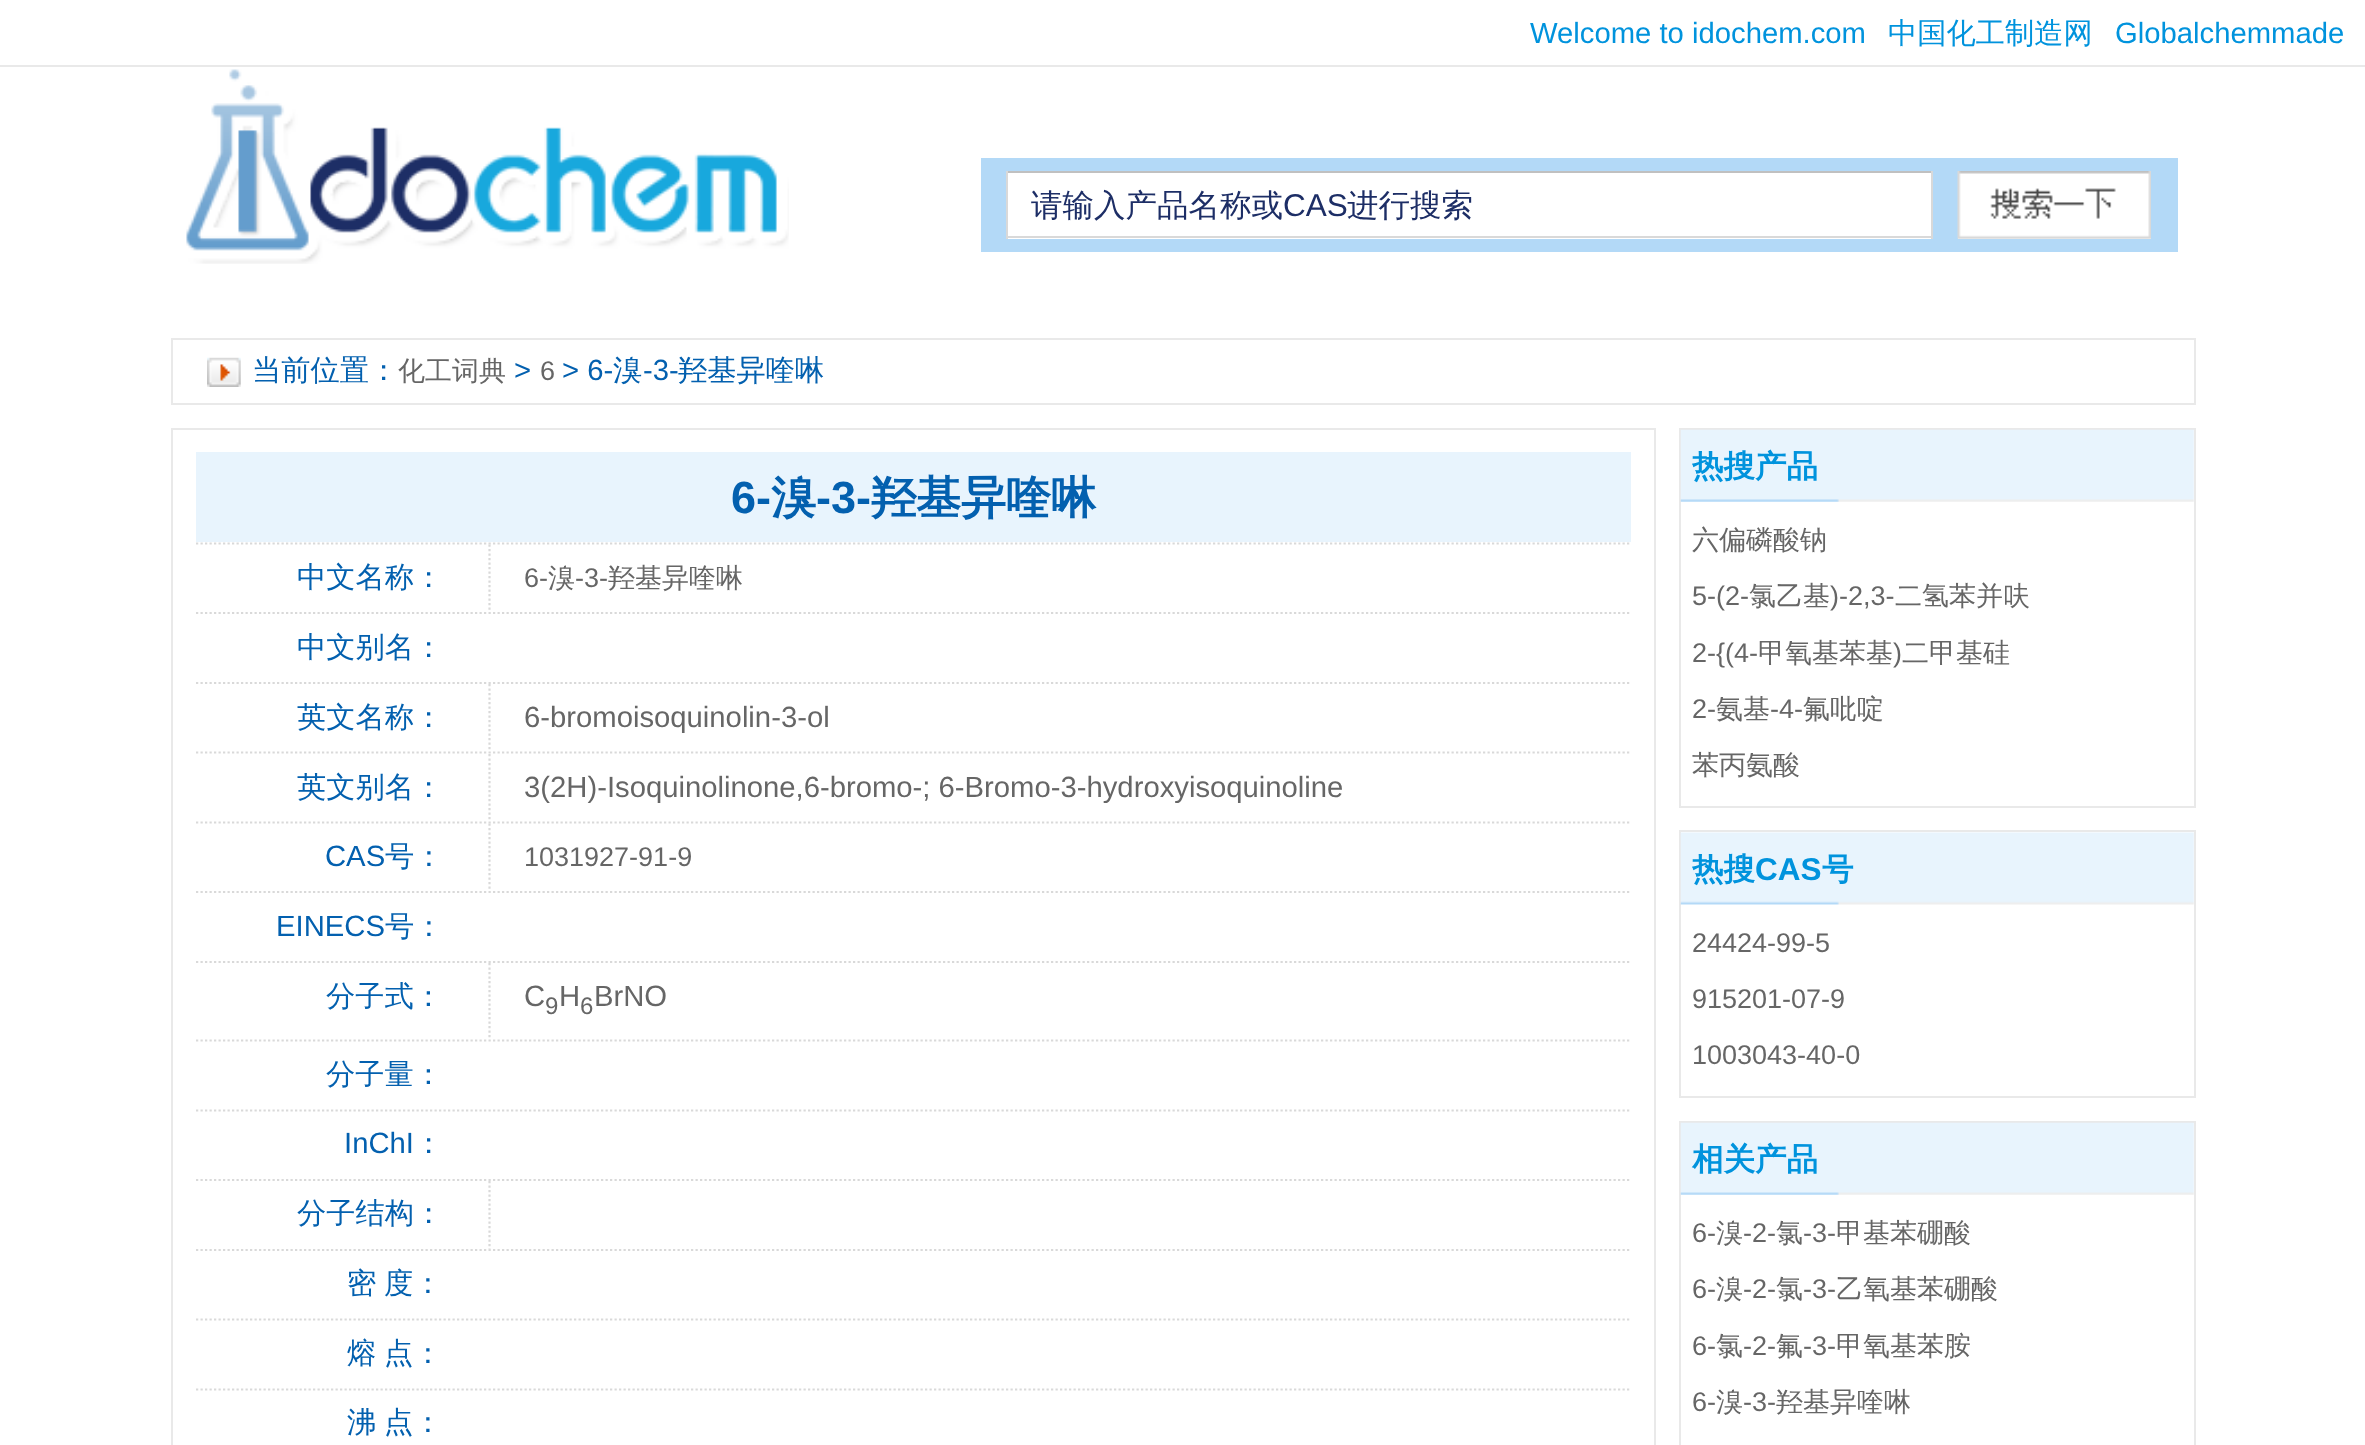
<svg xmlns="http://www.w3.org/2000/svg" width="2365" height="1445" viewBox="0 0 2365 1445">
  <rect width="100%" height="100%" fill="#ffffff"/>
  <rect x="0" y="65" width="2365" height="2" fill="#e9e9e9"/>
  <text x="1530" y="43" font-family="Liberation Sans" font-size="29.25" fill="#0093dd">Welcome to idochem.com</text>
  <text x="1888" y="43" font-family="WenQuanYi Zen Hei" font-size="29.25" font-weight="500" fill="#0093dd">中国化工制造网</text>
  <text x="2115" y="43" font-family="Liberation Sans" font-size="29.25" fill="#0093dd">Globalchemmade</text>
  <image x="186" y="69" width="603" height="195" href="img1.png"/>
  <rect x="981" y="158" width="1197" height="94" fill="#b3d9f7"/>
  <rect x="1008" y="173" width="923" height="66" fill="#ffffff"/>
  <rect x="1006" y="171" width="927" height="2" fill="#c0c0c0"/>
  <rect x="1931" y="171" width="2" height="68" fill="#d9d9d9"/>
  <rect x="1006" y="236" width="927" height="2" fill="#d9d9d9"/>
  <rect x="1006" y="171" width="2" height="68" fill="#d9d9d9"/>
  <text x="1031" y="216" font-family="WenQuanYi Zen Hei" font-size="31.5" font-weight="500" fill="#1d2e66">请输入产品名称或</text>
  <text x="1283" y="216" font-family="Liberation Sans" font-size="31.5" fill="#1d2e66">CAS</text>
  <text x="1347" y="216" font-family="WenQuanYi Zen Hei" font-size="31.5" font-weight="500" fill="#1d2e66">进行搜索</text>
  <rect x="1958" y="238" width="193" height="1" fill="#efefef"/>
  <image x="1957" y="171" width="194" height="68" href="img2.png"/>
  <rect x="172" y="339" width="2023" height="65" fill="none" stroke="#e9e9e9" stroke-width="2"/>
  <image x="207" y="357" width="34" height="30" href="img3.png"/>
  <text x="252" y="380" font-family="WenQuanYi Zen Hei" font-size="29.25" font-weight="500" fill="#0360af">当前位置：</text>
  <text x="398" y="380" font-family="WenQuanYi Zen Hei" font-size="27" font-weight="500" fill="#666666">化工词典</text>
  <text x="514" y="380" font-family="Liberation Sans" font-size="29.25" fill="#0360af">&gt;</text>
  <text x="540" y="380" font-family="Liberation Sans" font-size="27" fill="#666666">6</text>
  <text x="562" y="380" font-family="Liberation Sans" font-size="29.25" fill="#0360af">&gt; 6-</text>
  <text x="613" y="380" font-family="WenQuanYi Zen Hei" font-size="29.25" font-weight="500" fill="#0360af">溴</text>
  <text x="643" y="380" font-family="Liberation Sans" font-size="29.25" fill="#0360af">-3-</text>
  <text x="678" y="380" font-family="WenQuanYi Zen Hei" font-size="29.25" font-weight="500" fill="#0360af">羟基异喹啉</text>
  <rect x="172" y="429" width="1483" height="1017" fill="none" stroke="#e9e9e9" stroke-width="2"/>
  <path d="M196 543.5H1631" fill="none" stroke="#d9d9d9" stroke-width="2.2" stroke-dasharray="2.25 2.25"/>
  <rect x="196" y="452" width="1435" height="90" fill="#e8f4fd"/>
  <text x="731" y="513" font-family="Liberation Sans" font-size="45" font-weight="bold" fill="#0360af">6-</text>
  <text x="771" y="513" font-family="WenQuanYi Zen Hei" font-size="45" font-weight="bold" fill="#0360af">溴</text>
  <text x="816" y="513" font-family="Liberation Sans" font-size="45" font-weight="bold" fill="#0360af">-3-</text>
  <text x="871" y="513" font-family="WenQuanYi Zen Hei" font-size="45" font-weight="bold" fill="#0360af">羟基异喹啉</text>
  <path d="M196 613H1631" fill="none" stroke="#d9d9d9" stroke-width="2.2" stroke-dasharray="2.25 2.25"/>
  <text x="297" y="587" font-family="WenQuanYi Zen Hei" font-size="29.25" font-weight="500" fill="#0360af">中文名称：</text>
  <path d="M489.5 544.5V612" fill="none" stroke="#d9d9d9" stroke-width="2.2" stroke-dasharray="2.25 2.25"/>
  <text x="524" y="587" font-family="Liberation Sans" font-size="27" fill="#666666">6-</text>
  <text x="548" y="587" font-family="WenQuanYi Zen Hei" font-size="27" font-weight="500" fill="#666666">溴</text>
  <text x="575" y="587" font-family="Liberation Sans" font-size="27" fill="#666666">-3-</text>
  <text x="608" y="587" font-family="WenQuanYi Zen Hei" font-size="27" font-weight="500" fill="#666666">羟基异喹啉</text>
  <path d="M196 683H1631" fill="none" stroke="#d9d9d9" stroke-width="2.2" stroke-dasharray="2.25 2.25"/>
  <text x="297" y="657" font-family="WenQuanYi Zen Hei" font-size="29.25" font-weight="500" fill="#0360af">中文别名：</text>
  <path d="M196 752.5H1631" fill="none" stroke="#d9d9d9" stroke-width="2.2" stroke-dasharray="2.25 2.25"/>
  <text x="297" y="727" font-family="WenQuanYi Zen Hei" font-size="29.25" font-weight="500" fill="#0360af">英文名称：</text>
  <path d="M489.5 684V751.5" fill="none" stroke="#d9d9d9" stroke-width="2.2" stroke-dasharray="2.25 2.25"/>
  <text x="524" y="727" font-family="Liberation Sans" font-size="29.25" fill="#666666">6-bromoisoquinolin-3-ol</text>
  <path d="M196 822.5H1631" fill="none" stroke="#d9d9d9" stroke-width="2.2" stroke-dasharray="2.25 2.25"/>
  <text x="297" y="797" font-family="WenQuanYi Zen Hei" font-size="29.25" font-weight="500" fill="#0360af">英文别名：</text>
  <path d="M489.5 754V821" fill="none" stroke="#d9d9d9" stroke-width="2.2" stroke-dasharray="2.25 2.25"/>
  <text x="524" y="797" font-family="Liberation Sans" font-size="29.25" fill="#666666">3(2H)-Isoquinolinone,6-bromo-; 6-Bromo-3-hydroxyisoquinoline</text>
  <path d="M196 892H1631" fill="none" stroke="#d9d9d9" stroke-width="2.2" stroke-dasharray="2.25 2.25"/>
  <text x="325" y="866" font-family="Liberation Sans" font-size="29.25" fill="#0360af">CAS</text>
  <text x="385" y="866" font-family="WenQuanYi Zen Hei" font-size="29.25" font-weight="500" fill="#0360af">号：</text>
  <path d="M489.5 823.5V891" fill="none" stroke="#d9d9d9" stroke-width="2.2" stroke-dasharray="2.25 2.25"/>
  <text x="524" y="866" font-family="Liberation Sans" font-size="27" fill="#666666">1031927-91-9</text>
  <path d="M196 962H1631" fill="none" stroke="#d9d9d9" stroke-width="2.2" stroke-dasharray="2.25 2.25"/>
  <text x="276" y="936" font-family="Liberation Sans" font-size="29.25" fill="#0360af">EINECS</text>
  <text x="385" y="936" font-family="WenQuanYi Zen Hei" font-size="29.25" font-weight="500" fill="#0360af">号：</text>
  <path d="M196 1040.5H1631" fill="none" stroke="#d9d9d9" stroke-width="2.2" stroke-dasharray="2.25 2.25"/>
  <text x="326" y="1006" font-family="WenQuanYi Zen Hei" font-size="29.25" font-weight="500" fill="#0360af">分子式：</text>
  <path d="M489.5 963V1039.5" fill="none" stroke="#d9d9d9" stroke-width="2.2" stroke-dasharray="2.25 2.25"/>
  <text x="524" y="1006" font-family="Liberation Sans" font-size="29.25" fill="#666666">C</text>
  <text x="545" y="1014" font-family="Liberation Sans" font-size="24" fill="#666666">9</text>
  <text x="559" y="1006" font-family="Liberation Sans" font-size="29.25" fill="#666666">H</text>
  <text x="580" y="1014" font-family="Liberation Sans" font-size="24" fill="#666666">6</text>
  <text x="594" y="1006" font-family="Liberation Sans" font-size="29.25" fill="#666666">BrNO</text>
  <path d="M196 1110.5H1631" fill="none" stroke="#d9d9d9" stroke-width="2.2" stroke-dasharray="2.25 2.25"/>
  <text x="326" y="1084" font-family="WenQuanYi Zen Hei" font-size="29.25" font-weight="500" fill="#0360af">分子量：</text>
  <path d="M196 1180H1631" fill="none" stroke="#d9d9d9" stroke-width="2.2" stroke-dasharray="2.25 2.25"/>
  <text x="344" y="1153" font-family="Liberation Sans" font-size="29.25" fill="#0360af">InChI</text>
  <text x="414" y="1153" font-family="WenQuanYi Zen Hei" font-size="29.25" font-weight="500" fill="#0360af">：</text>
  <path d="M196 1250H1631" fill="none" stroke="#d9d9d9" stroke-width="2.2" stroke-dasharray="2.25 2.25"/>
  <text x="297" y="1223" font-family="WenQuanYi Zen Hei" font-size="29.25" font-weight="500" fill="#0360af">分子结构：</text>
  <path d="M489.5 1181V1249" fill="none" stroke="#d9d9d9" stroke-width="2.2" stroke-dasharray="2.25 2.25"/>
  <path d="M196 1319.5H1631" fill="none" stroke="#d9d9d9" stroke-width="2.2" stroke-dasharray="2.25 2.25"/>
  <text x="347" y="1293" word-spacing="-1" font-family="WenQuanYi Zen Hei" font-size="29.25" font-weight="500" fill="#0360af">密 度：</text>
  <path d="M196 1389.5H1631" fill="none" stroke="#d9d9d9" stroke-width="2.2" stroke-dasharray="2.25 2.25"/>
  <text x="347" y="1363" word-spacing="-1" font-family="WenQuanYi Zen Hei" font-size="29.25" font-weight="500" fill="#0360af">熔 点：</text>
  <text x="347" y="1432" word-spacing="-1" font-family="WenQuanYi Zen Hei" font-size="29.25" font-weight="500" fill="#0360af">沸 点：</text>
  <rect x="1680" y="429" width="515" height="378" fill="none" stroke="#e9e9e9" stroke-width="2"/>
  <image x="1680" y="429" width="514" height="73" href="img4.png"/>
  <text x="1692" y="477" font-family="WenQuanYi Zen Hei" font-size="31.5" font-weight="bold" fill="#0093dd">热搜产品</text>
  <text x="1692" y="549" font-family="WenQuanYi Zen Hei" font-size="27" font-weight="500" fill="#666666">六偏磷酸钠</text>
  <text x="1692" y="605" font-family="Liberation Sans" font-size="27" fill="#666666">5-(2-</text>
  <text x="1749" y="605" font-family="WenQuanYi Zen Hei" font-size="27" font-weight="500" fill="#666666">氯乙基</text>
  <text x="1830" y="605" font-family="Liberation Sans" font-size="27" fill="#666666">)-2,3-</text>
  <text x="1895" y="605" font-family="WenQuanYi Zen Hei" font-size="27" font-weight="500" fill="#666666">二氢苯并呋</text>
  <text x="1692" y="662" font-family="Liberation Sans" font-size="27" fill="#666666">2-{(4-</text>
  <text x="1758" y="662" font-family="WenQuanYi Zen Hei" font-size="27" font-weight="500" fill="#666666">甲氧基苯基</text>
  <text x="1893" y="662" font-family="Liberation Sans" font-size="27" fill="#666666">)</text>
  <text x="1902" y="662" font-family="WenQuanYi Zen Hei" font-size="27" font-weight="500" fill="#666666">二甲基硅</text>
  <text x="1692" y="718" font-family="Liberation Sans" font-size="27" fill="#666666">2-</text>
  <text x="1716" y="718" font-family="WenQuanYi Zen Hei" font-size="27" font-weight="500" fill="#666666">氨基</text>
  <text x="1770" y="718" font-family="Liberation Sans" font-size="27" fill="#666666">-4-</text>
  <text x="1803" y="718" font-family="WenQuanYi Zen Hei" font-size="27" font-weight="500" fill="#666666">氟吡啶</text>
  <text x="1692" y="774" font-family="WenQuanYi Zen Hei" font-size="27" font-weight="500" fill="#666666">苯丙氨酸</text>
  <rect x="1680" y="831" width="515" height="266" fill="none" stroke="#e9e9e9" stroke-width="2"/>
  <image x="1680" y="832" width="514" height="73" href="img5.png"/>
  <text x="1692" y="880" font-family="WenQuanYi Zen Hei" font-size="31.5" font-weight="bold" fill="#0093dd">热搜</text>
  <text x="1755" y="880" font-family="Liberation Sans" font-size="31.5" font-weight="bold" fill="#0093dd">CAS</text>
  <text x="1822" y="880" font-family="WenQuanYi Zen Hei" font-size="31.5" font-weight="bold" fill="#0093dd">号</text>
  <text x="1692" y="952" font-family="Liberation Sans" font-size="27" fill="#666666">24424-99-5</text>
  <text x="1692" y="1008" font-family="Liberation Sans" font-size="27" fill="#666666">915201-07-9</text>
  <text x="1692" y="1064" font-family="Liberation Sans" font-size="27" fill="#666666">1003043-40-0</text>
  <rect x="1680" y="1122" width="515" height="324" fill="none" stroke="#e9e9e9" stroke-width="2"/>
  <image x="1680" y="1122" width="514" height="73" href="img6.png"/>
  <text x="1692" y="1170" font-family="WenQuanYi Zen Hei" font-size="31.5" font-weight="bold" fill="#0093dd">相关产品</text>
  <text x="1692" y="1242" font-family="Liberation Sans" font-size="27" fill="#666666">6-</text>
  <text x="1716" y="1242" font-family="WenQuanYi Zen Hei" font-size="27" font-weight="500" fill="#666666">溴</text>
  <text x="1743" y="1242" font-family="Liberation Sans" font-size="27" fill="#666666">-2-</text>
  <text x="1776" y="1242" font-family="WenQuanYi Zen Hei" font-size="27" font-weight="500" fill="#666666">氯</text>
  <text x="1803" y="1242" font-family="Liberation Sans" font-size="27" fill="#666666">-3-</text>
  <text x="1836" y="1242" font-family="WenQuanYi Zen Hei" font-size="27" font-weight="500" fill="#666666">甲基苯硼酸</text>
  <text x="1692" y="1298" font-family="Liberation Sans" font-size="27" fill="#666666">6-</text>
  <text x="1716" y="1298" font-family="WenQuanYi Zen Hei" font-size="27" font-weight="500" fill="#666666">溴</text>
  <text x="1743" y="1298" font-family="Liberation Sans" font-size="27" fill="#666666">-2-</text>
  <text x="1776" y="1298" font-family="WenQuanYi Zen Hei" font-size="27" font-weight="500" fill="#666666">氯</text>
  <text x="1803" y="1298" font-family="Liberation Sans" font-size="27" fill="#666666">-3-</text>
  <text x="1836" y="1298" font-family="WenQuanYi Zen Hei" font-size="27" font-weight="500" fill="#666666">乙氧基苯硼酸</text>
  <text x="1692" y="1355" font-family="Liberation Sans" font-size="27" fill="#666666">6-</text>
  <text x="1716" y="1355" font-family="WenQuanYi Zen Hei" font-size="27" font-weight="500" fill="#666666">氯</text>
  <text x="1743" y="1355" font-family="Liberation Sans" font-size="27" fill="#666666">-2-</text>
  <text x="1776" y="1355" font-family="WenQuanYi Zen Hei" font-size="27" font-weight="500" fill="#666666">氟</text>
  <text x="1803" y="1355" font-family="Liberation Sans" font-size="27" fill="#666666">-3-</text>
  <text x="1836" y="1355" font-family="WenQuanYi Zen Hei" font-size="27" font-weight="500" fill="#666666">甲氧基苯胺</text>
  <text x="1692" y="1411" font-family="Liberation Sans" font-size="27" fill="#666666">6-</text>
  <text x="1716" y="1411" font-family="WenQuanYi Zen Hei" font-size="27" font-weight="500" fill="#666666">溴</text>
  <text x="1743" y="1411" font-family="Liberation Sans" font-size="27" fill="#666666">-3-</text>
  <text x="1776" y="1411" font-family="WenQuanYi Zen Hei" font-size="27" font-weight="500" fill="#666666">羟基异喹啉</text>
</svg>
